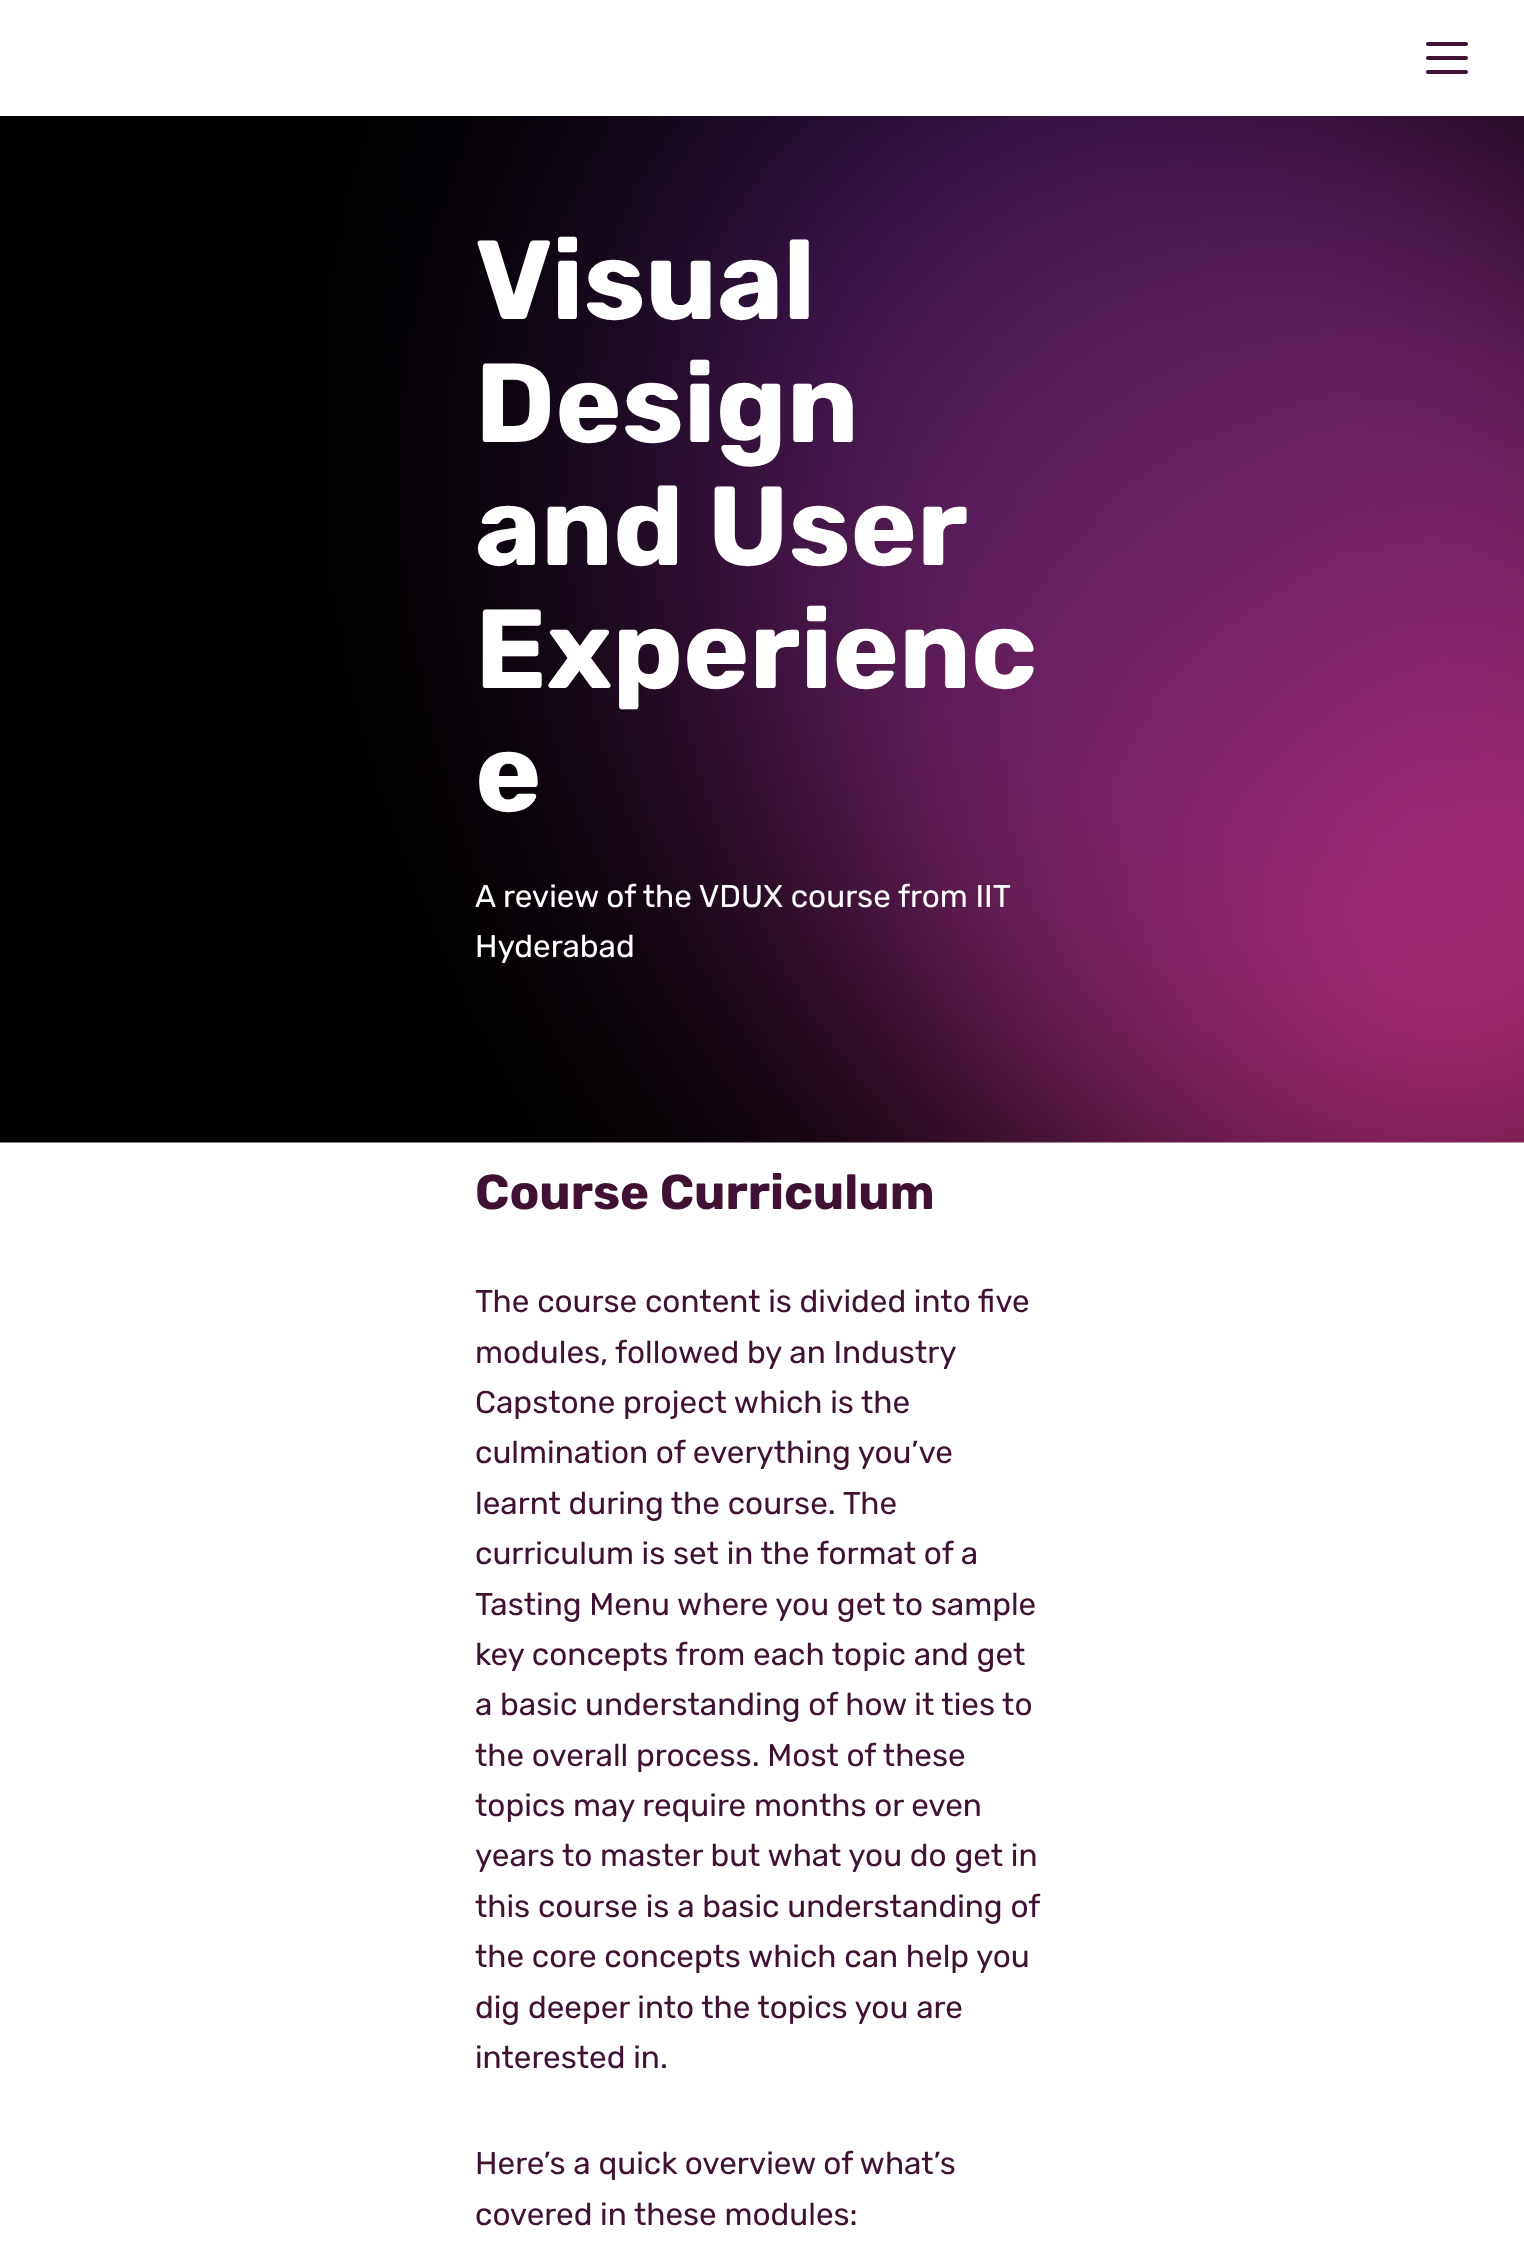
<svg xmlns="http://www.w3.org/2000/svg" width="1524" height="2268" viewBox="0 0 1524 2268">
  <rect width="100%" height="100%" fill="#ffffff"/>
  <rect x="1426" y="42" width="42" height="4" rx="2" fill="#401133"/>
  <rect x="1426" y="56" width="42" height="4" rx="2" fill="#401133"/>
  <rect x="1426" y="70" width="42" height="4" rx="2" fill="#401133"/>
  <image x="0" y="116" width="1524" height="1027" href="img1.png"/>
  <text x="475" y="319" font-family="Rubik" font-size="112" font-weight="300" fill="#ffffff">Visual</text>
  <text x="475" y="442" font-family="Rubik" font-size="112" font-weight="300" fill="#ffffff">Design</text>
  <text x="475" y="565" font-family="Rubik" font-size="112" font-weight="300" fill="#ffffff">and User</text>
  <text x="475" y="688" font-family="Rubik" font-size="112" font-weight="300" fill="#ffffff">Experienc</text>
  <text x="475" y="811" font-family="Rubik" font-size="112" font-weight="300" fill="#ffffff">e</text>
  <text x="475" y="907" font-family="'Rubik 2'" font-size="31.5" font-weight="300" fill="#ffffff">A review of the VDUX course from IIT</text>
  <text x="475" y="957" font-family="'Rubik 2'" font-size="31.5" font-weight="300" fill="#ffffff">Hyderabad</text>
  <text x="475" y="1209" font-family="Rubik" font-size="49" font-weight="300" fill="#401133">Course Curriculum</text>
  <text x="475" y="1312" font-family="'Rubik 2'" font-size="31.5" font-weight="300" fill="#401133">The course content is divided into five</text>
  <text x="475" y="1363" font-family="'Rubik 2'" font-size="31.5" font-weight="300" fill="#401133">modules, followed by an Industry</text>
  <text x="475" y="1413" font-family="'Rubik 2'" font-size="31.5" font-weight="300" fill="#401133">Capstone project which is the</text>
  <text x="475" y="1463" font-family="'Rubik 2'" font-size="31.5" font-weight="300" fill="#401133">culmination of everything you’ve</text>
  <text x="475" y="1514" font-family="'Rubik 2'" font-size="31.5" font-weight="300" fill="#401133">learnt during the course. The</text>
  <text x="475" y="1564" font-family="'Rubik 2'" font-size="31.5" font-weight="300" fill="#401133">curriculum is set in the format of a</text>
  <text x="475" y="1615" font-family="'Rubik 2'" font-size="31.5" font-weight="300" fill="#401133">Tasting Menu where you get to sample</text>
  <text x="475" y="1665" font-family="'Rubik 2'" font-size="31.5" font-weight="300" fill="#401133">key concepts from each topic and get</text>
  <text x="475" y="1715" font-family="'Rubik 2'" font-size="31.5" font-weight="300" fill="#401133">a basic understanding of how it ties to</text>
  <text x="475" y="1766" font-family="'Rubik 2'" font-size="31.5" font-weight="300" fill="#401133">the overall process. Most of these</text>
  <text x="475" y="1816" font-family="'Rubik 2'" font-size="31.5" font-weight="300" fill="#401133">topics may require months or even</text>
  <text x="475" y="1866" font-family="'Rubik 2'" font-size="31.5" font-weight="300" fill="#401133">years to master but what you do get in</text>
  <text x="475" y="1917" font-family="'Rubik 2'" font-size="31.5" font-weight="300" fill="#401133">this course is a basic understanding of</text>
  <text x="475" y="1967" font-family="'Rubik 2'" font-size="31.5" font-weight="300" fill="#401133">the core concepts which can help you</text>
  <text x="475" y="2018" font-family="'Rubik 2'" font-size="31.5" font-weight="300" fill="#401133">dig deeper into the topics you are</text>
  <text x="475" y="2068" font-family="'Rubik 2'" font-size="31.5" font-weight="300" fill="#401133">interested in.</text>
  <text x="475" y="2174" font-family="'Rubik 2'" font-size="31.5" font-weight="300" fill="#401133">Here’s a quick overview of what’s</text>
  <text x="475" y="2225" font-family="'Rubik 2'" font-size="31.5" font-weight="300" fill="#401133">covered in these modules:</text>
</svg>
